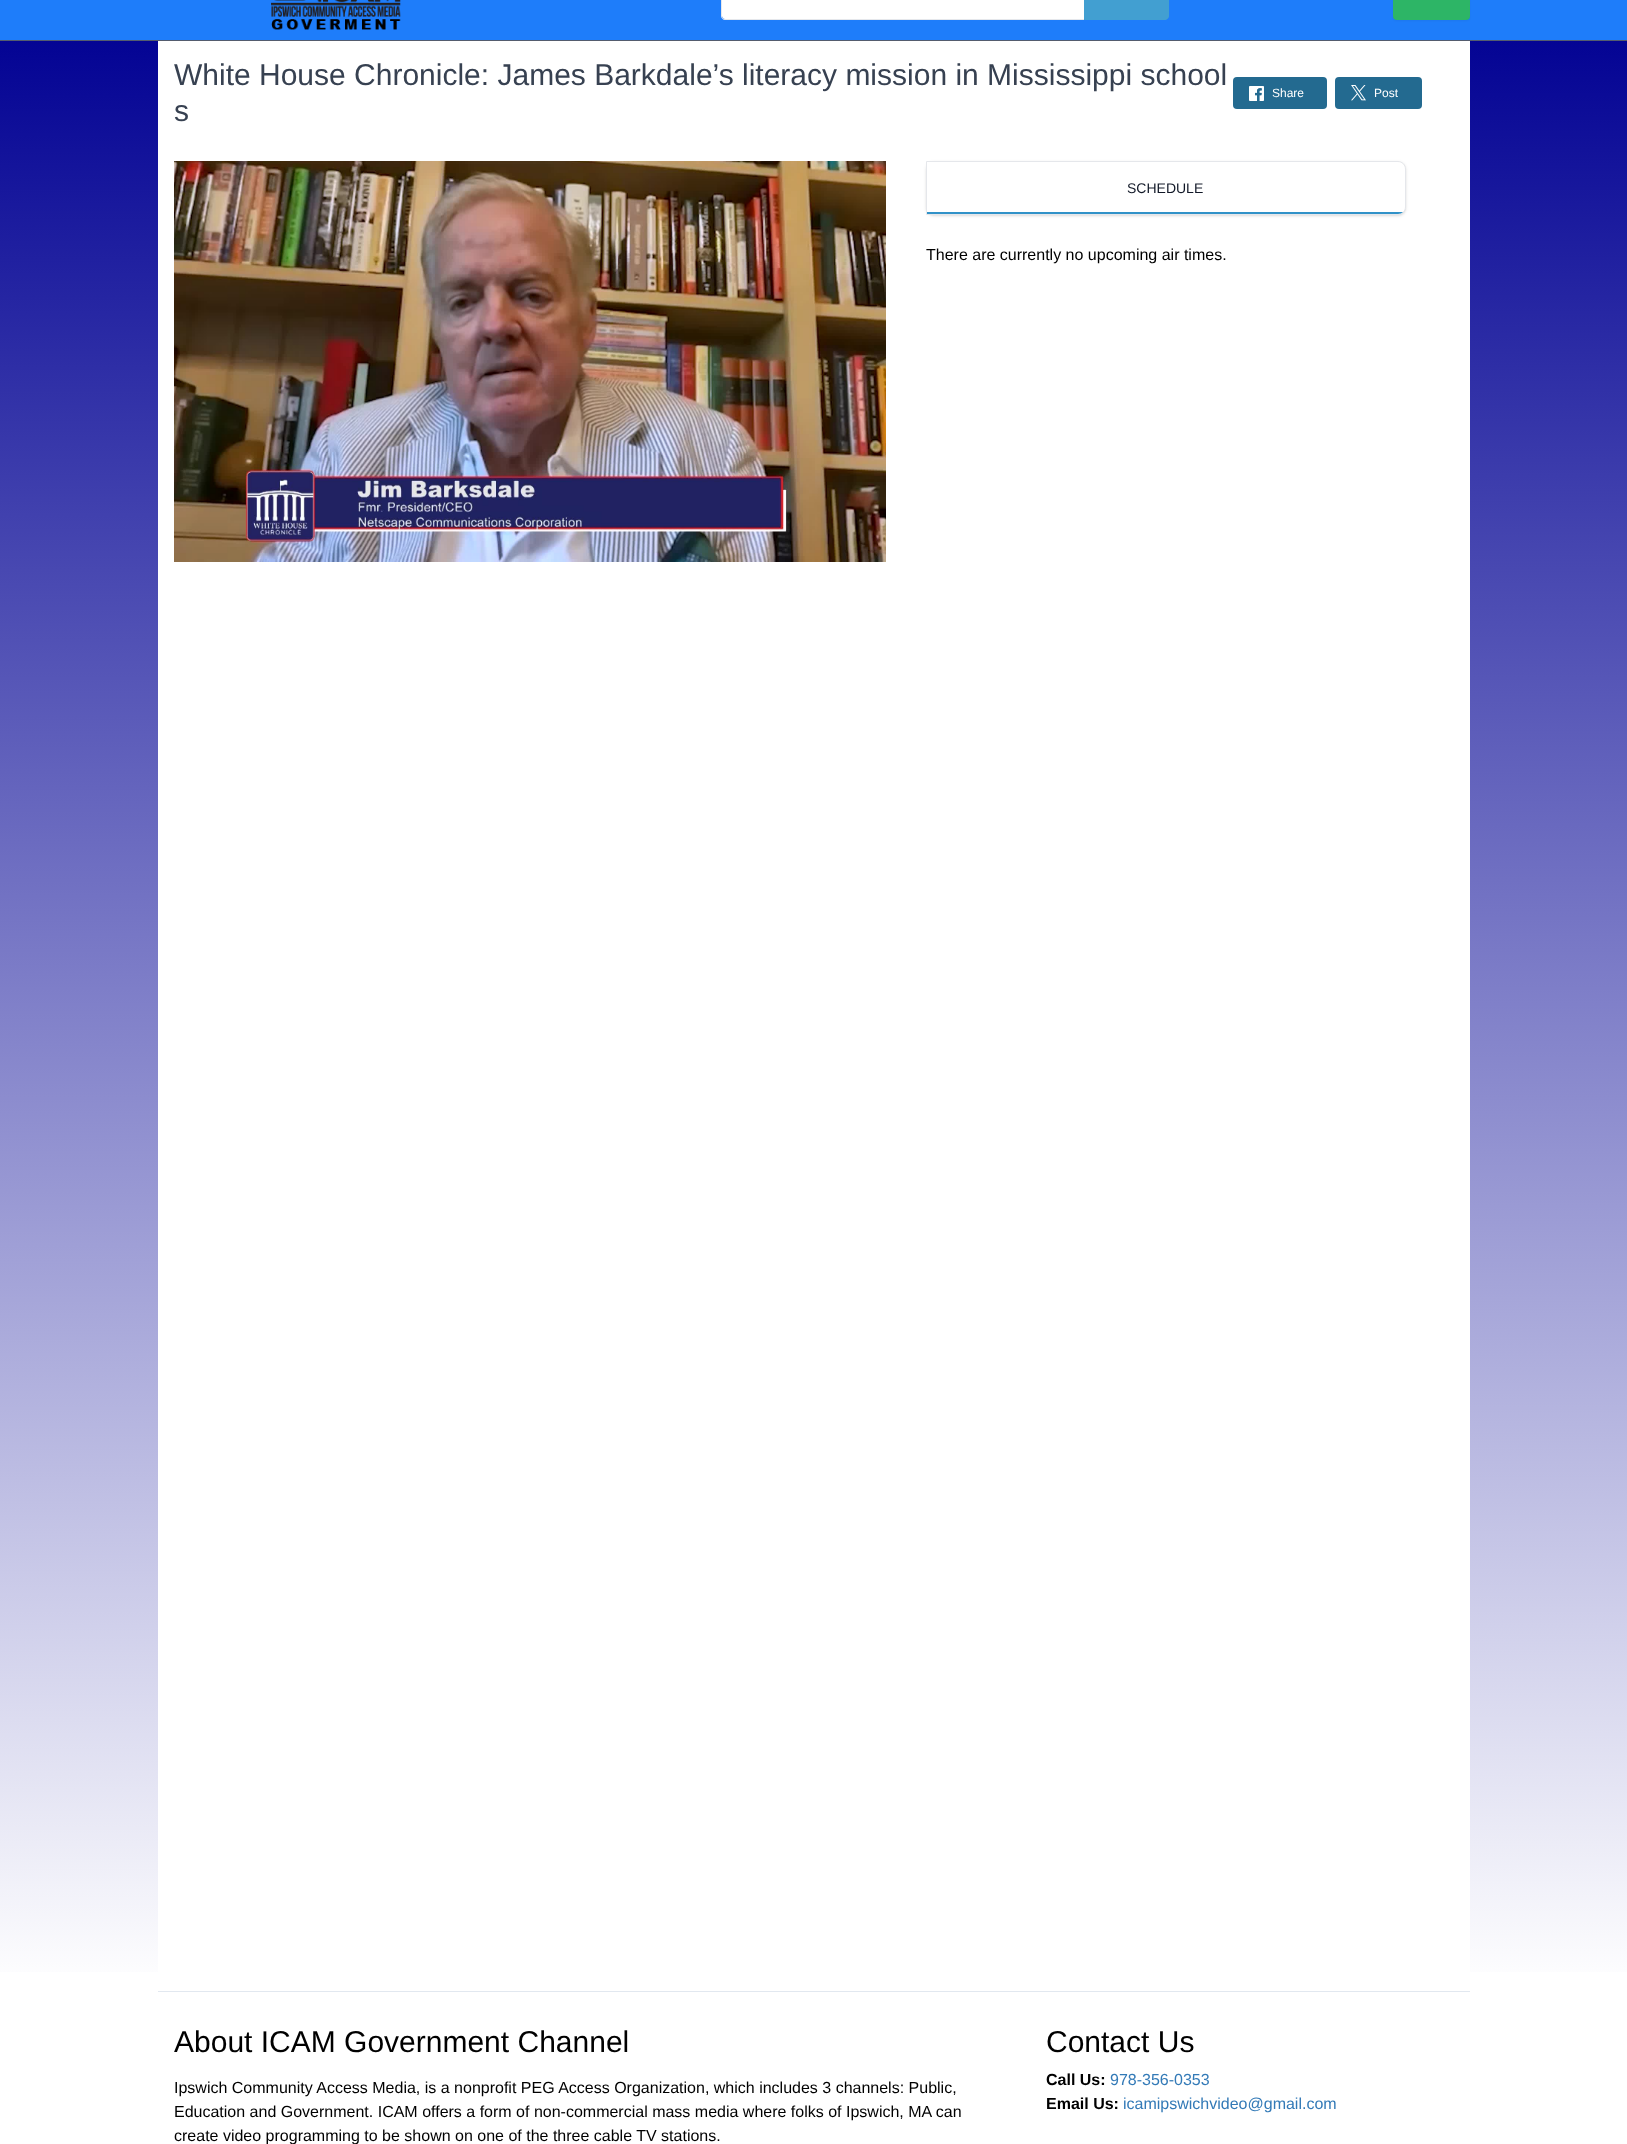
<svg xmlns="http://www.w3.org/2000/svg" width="1627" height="2144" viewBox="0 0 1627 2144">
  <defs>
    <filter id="blur1" x="-50%" y="-200%" width="200%" height="500%"><feGaussianBlur stdDeviation="1"/></filter>
    <linearGradient id="g1" gradientUnits="userSpaceOnUse" x1="813" y1="41" x2="814" y2="1991"><stop offset="0" stop-color="#040494"/><stop offset="1" stop-color="#ffffff"/></linearGradient>
    <filter id="blur2" x="-50%" y="-200%" width="200%" height="500%"><feGaussianBlur stdDeviation="1.5"/></filter>
    <clipPath id="clip1"><path d="M927 162H1398C1402 162 1405 165 1405 169V207C1405 211 1402 214 1398 214H927Z"/></clipPath>
  </defs>
  <rect width="100%" height="100%" fill="#ffffff"/>
  <rect x="0" y="0" width="1627" height="40" fill="#1e7dfa"/>
  <rect x="0" y="40" width="1627" height="1" fill="#545c6e"/>
  <image x="271" y="0" width="130" height="30" href="img1.png"/>
  <path d="M725-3H1084V19H725C723.5 19 722 17.5 722 16V0C722-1.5 723.5-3 725-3Z" fill="#ffffff"/>
  <path d="M725-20H1084V20H725C723 20 721 18 721 16V-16C721-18 723-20 725-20ZM725-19H1084V19H725C723 19 722 18 722 16V-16C722-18 723-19 725-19Z" fill="#e5e7eb" fill-rule="evenodd"/>
  <path d="M1084.5-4.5H1165C1167-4.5 1168.5-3 1168.5-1V16C1168.5 18 1167 19.5 1165 19.5H1084.5Z" fill="#429fd1" stroke="#429fd1"/>
  <rect x="1393" y="-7" width="77" height="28" rx="4" fill="#000000" fill-opacity="0.05" filter="url(#blur1)"/>
  <rect x="1393" y="-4" width="77" height="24" rx="4" fill="#2db566"/>
  <rect x="0" y="41" width="1627" height="1931" fill="url(#g1)"/>
  <rect x="158" y="41" width="1312" height="1931" fill="#ffffff"/>
  <text x="174" y="85" font-family="Liberation Sans" font-size="30" fill="#374151">White House Chronicle: James Barkdale’s literacy mission in Mississippi school</text>
  <text x="174" y="121" font-family="Liberation Sans" font-size="30" fill="#374151">s</text>
  <rect x="1233" y="77" width="94" height="32" rx="4" fill="#236a90"/>
  <image x="1249" y="86" width="15" height="15" href="img2.png"/>
  <text x="1272" y="97" font-family="Liberation Sans" font-size="12" fill="#ffffff">Share</text>
  <rect x="1335" y="77" width="87" height="32" rx="4" fill="#236a90"/>
  <image x="1351" y="85" width="15" height="16" href="img3.png"/>
  <text x="1374" y="97" font-family="Liberation Sans" font-size="12" fill="#ffffff">Post</text>
  <image x="174" y="161" width="712" height="401" href="img4.png"/>
  <rect x="927" y="163" width="478" height="52" rx="7" fill="#000000" fill-opacity="0.1" filter="url(#blur1)"/>
  <rect x="926" y="162" width="480" height="54" rx="8" fill="#000000" fill-opacity="0.1" filter="url(#blur2)"/>
  <path d="M926.5 161.5H1398C1402 161.5 1405.5 165 1405.5 169V207C1405.5 211 1402 214.5 1398 214.5H926.5Z" fill="#ffffff" stroke="#e5e7eb"/>
  <text x="1127" y="193" font-family="Liberation Sans" font-size="14" fill="#111827">SCHEDULE</text>
  <g clip-path="url(#clip1)">
    <rect x="927" y="212" width="478" height="2" fill="#3192c8"/>
  </g>
  <text x="926" y="260" font-family="Liberation Sans" font-size="16" fill="#000000">There are currently no upcoming air times.</text>
  <rect x="158" y="1991" width="1312" height="1" fill="#e2e8f0"/>
  <text x="174" y="2052" font-family="Liberation Sans" font-size="30" fill="#000000">About ICAM Government Channel</text>
  <text x="174" y="2093" font-family="Liberation Sans" font-size="16" fill="#000000">Ipswich Community Access Media, is a nonprofit PEG Access Organization, which includes 3 channels: Public,</text>
  <text x="174" y="2117" font-family="Liberation Sans" font-size="16" fill="#000000">Education and Government. ICAM offers a form of non-commercial mass media where folks of Ipswich, MA can</text>
  <text x="174" y="2141" font-family="Liberation Sans" font-size="16" fill="#000000">create video programming to be shown on one of the three cable TV stations.</text>
  <text x="1046" y="2052" font-family="Liberation Sans" font-size="30" fill="#000000">Contact Us</text>
  <text x="1046" y="2085" font-family="Liberation Sans" font-size="16" font-weight="bold" fill="#000000">Call Us:</text>
  <text x="1110" y="2085" font-family="Liberation Sans" font-size="16" fill="#337ab7">978-356-0353</text>
  <text x="1046" y="2109" font-family="Liberation Sans" font-size="16" font-weight="bold" fill="#000000">Email Us:</text>
  <text x="1123" y="2109" font-family="Liberation Sans" font-size="16" fill="#337ab7">icamipswichvideo@gmail.com</text>
</svg>
